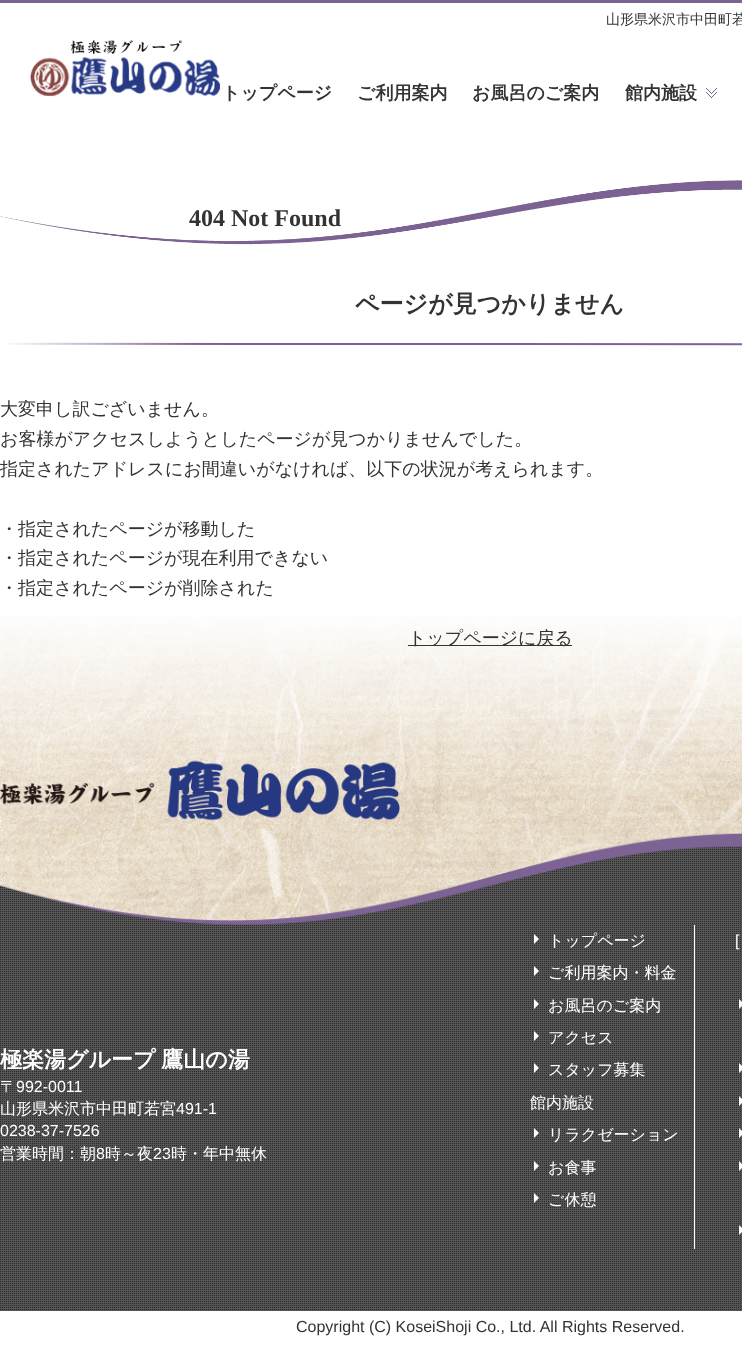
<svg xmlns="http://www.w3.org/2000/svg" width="742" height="1367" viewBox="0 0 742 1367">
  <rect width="100%" height="100%" fill="#ffffff"/>
  <text x="606" y="24" font-family="WenQuanYi Zen Hei" font-size="14" font-weight="500" fill="#333333">山形県米沢市中田町若</text>
  <rect x="0" y="0" width="742" height="3" fill="#7d6393"/>
  <image x="30" y="40" width="190" height="57" href="img1.png"/>
  <text x="222" y="99" font-family="WenQuanYi Zen Hei" font-size="18" font-weight="bold" fill="#333333">トップページ</text>
  <text x="357" y="99" font-family="WenQuanYi Zen Hei" font-size="18" font-weight="bold" fill="#333333">ご利用案内</text>
  <text x="472" y="99" font-family="WenQuanYi Zen Hei" font-size="18" font-weight="bold" fill="#333333">お風呂のご案内</text>
  <image x="706" y="88" width="11" height="10" href="img2.png"/>
  <text x="625" y="99" font-family="WenQuanYi Zen Hei" font-size="18" font-weight="bold" fill="#333333">館内施設</text>
  <rect x="0" y="846" width="742" height="465" fill="#555555"/>
  <image x="0" y="847" width="741" height="463" href="img7.png"/>
  <image x="0" y="615" width="742" height="310" href="img3.png"/>
  <image x="0" y="180" width="742" height="65" href="img4.png"/>
  <text x="189" y="226" font-family="Liberation Serif" font-size="24" font-weight="bold" fill="#333333">404 Not Found</text>
  <image x="7" y="342" width="735" height="4" href="img5.png"/>
  <text x="355" y="312" font-family="WenQuanYi Zen Hei" font-size="24" font-weight="bold" fill="#333333">ページが見つかりません</text>
  <text x="0" y="415" font-family="WenQuanYi Zen Hei" font-size="18" font-weight="500" fill="#333333">大変申し訳ございません。</text>
  <text x="0" y="445" font-family="WenQuanYi Zen Hei" font-size="18" font-weight="500" fill="#333333">お客様がアクセスしようとしたページが見つかりませんでした。</text>
  <text x="0" y="475" font-family="WenQuanYi Zen Hei" font-size="18" font-weight="500" fill="#333333">指定されたアドレスにお間違いがなければ、以下の状況が考えられます。</text>
  <text x="0" y="535" font-family="WenQuanYi Zen Hei" font-size="18" font-weight="500" fill="#333333">・指定されたページが移動した</text>
  <text x="0" y="564" font-family="WenQuanYi Zen Hei" font-size="18" font-weight="500" fill="#333333">・指定されたページが現在利用できない</text>
  <text x="0" y="594" font-family="WenQuanYi Zen Hei" font-size="18" font-weight="500" fill="#333333">・指定されたページが削除された</text>
  <rect x="408" y="645" width="164" height="1" fill="#333333"/>
  <text x="408" y="644" font-family="WenQuanYi Zen Hei" font-size="18" font-weight="500" fill="#333333">トップページに戻る</text>
  <image x="0" y="760" width="400" height="61" href="img6.png"/>
  <path d="M534 944V934L539 939Z" fill="#ffffff"/>
  <text x="548" y="946" font-family="WenQuanYi Zen Hei" font-size="16" font-weight="500" fill="#ffffff">トップページ</text>
  <path d="M534 976V966L539 971Z" fill="#ffffff"/>
  <text x="548" y="978" font-family="WenQuanYi Zen Hei" font-size="16" font-weight="500" fill="#ffffff">ご利用案内・料金</text>
  <path d="M534 1009V999L539 1004Z" fill="#ffffff"/>
  <text x="548" y="1011" font-family="WenQuanYi Zen Hei" font-size="16" font-weight="500" fill="#ffffff">お風呂のご案内</text>
  <path d="M534 1041V1031L539 1036Z" fill="#ffffff"/>
  <text x="548" y="1043" font-family="WenQuanYi Zen Hei" font-size="16" font-weight="500" fill="#ffffff">アクセス</text>
  <path d="M534 1073V1063L539 1068Z" fill="#ffffff"/>
  <text x="548" y="1075" font-family="WenQuanYi Zen Hei" font-size="16" font-weight="500" fill="#ffffff">スタッフ募集</text>
  <text x="530" y="1108" font-family="WenQuanYi Zen Hei" font-size="16" font-weight="500" fill="#ffffff">館内施設</text>
  <path d="M534 1138V1128L539 1133Z" fill="#ffffff"/>
  <text x="548" y="1140" font-family="WenQuanYi Zen Hei" font-size="16" font-weight="500" fill="#ffffff">リラクゼーション</text>
  <path d="M534 1171V1161L539 1166Z" fill="#ffffff"/>
  <text x="548" y="1173" font-family="WenQuanYi Zen Hei" font-size="16" font-weight="500" fill="#ffffff">お食事</text>
  <path d="M534 1203V1193L539 1198Z" fill="#ffffff"/>
  <text x="548" y="1205" font-family="WenQuanYi Zen Hei" font-size="16" font-weight="500" fill="#ffffff">ご休憩</text>
  <rect x="694" y="925" width="1" height="324" fill="#ffffff"/>
  <text x="735" y="946" font-family="Liberation Sans" font-size="16" fill="#ffffff">[</text>
  <path d="M739 1009V999L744 1004Z" fill="#ffffff"/>
  <path d="M739 1073V1063L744 1068ZM739 1106V1096L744 1101Z" fill="#ffffff"/>
  <path d="M739 1138V1128L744 1133ZM739 1171V1161L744 1166Z" fill="#ffffff"/>
  <path d="M739 1235V1225L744 1230Z" fill="#ffffff"/>
  <text x="0" y="1067" word-spacing="-1" font-family="WenQuanYi Zen Hei" font-size="22" font-weight="bold" fill="#ffffff">極楽湯グループ 鷹山の湯</text>
  <text x="0" y="1092" font-family="WenQuanYi Zen Hei" font-size="16" font-weight="500" fill="#ffffff">〒</text>
  <text x="16" y="1092" font-family="Liberation Sans" font-size="16" fill="#ffffff">992-0011</text>
  <text x="0" y="1114" font-family="WenQuanYi Zen Hei" font-size="16" font-weight="500" fill="#ffffff">山形県米沢市中田町若宮</text>
  <text x="176" y="1114" font-family="Liberation Sans" font-size="16" fill="#ffffff">491-1</text>
  <text x="0" y="1136" font-family="Liberation Sans" font-size="16" fill="#ffffff">0238-37-7526</text>
  <text x="0" y="1159" font-family="WenQuanYi Zen Hei" font-size="16" font-weight="500" fill="#ffffff">営業時間：朝</text>
  <text x="96" y="1159" font-family="Liberation Sans" font-size="16" fill="#ffffff">8</text>
  <text x="105" y="1159" font-family="WenQuanYi Zen Hei" font-size="16" font-weight="500" fill="#ffffff">時～夜</text>
  <text x="153" y="1159" font-family="Liberation Sans" font-size="16" fill="#ffffff">23</text>
  <text x="171" y="1159" font-family="WenQuanYi Zen Hei" font-size="16" font-weight="500" fill="#ffffff">時・年中無休</text>
  <text x="296" y="1332" font-family="Liberation Sans" font-size="16" fill="#333333">Copyright (C) KoseiShoji Co., Ltd. All Rights Reserved.</text>
</svg>
